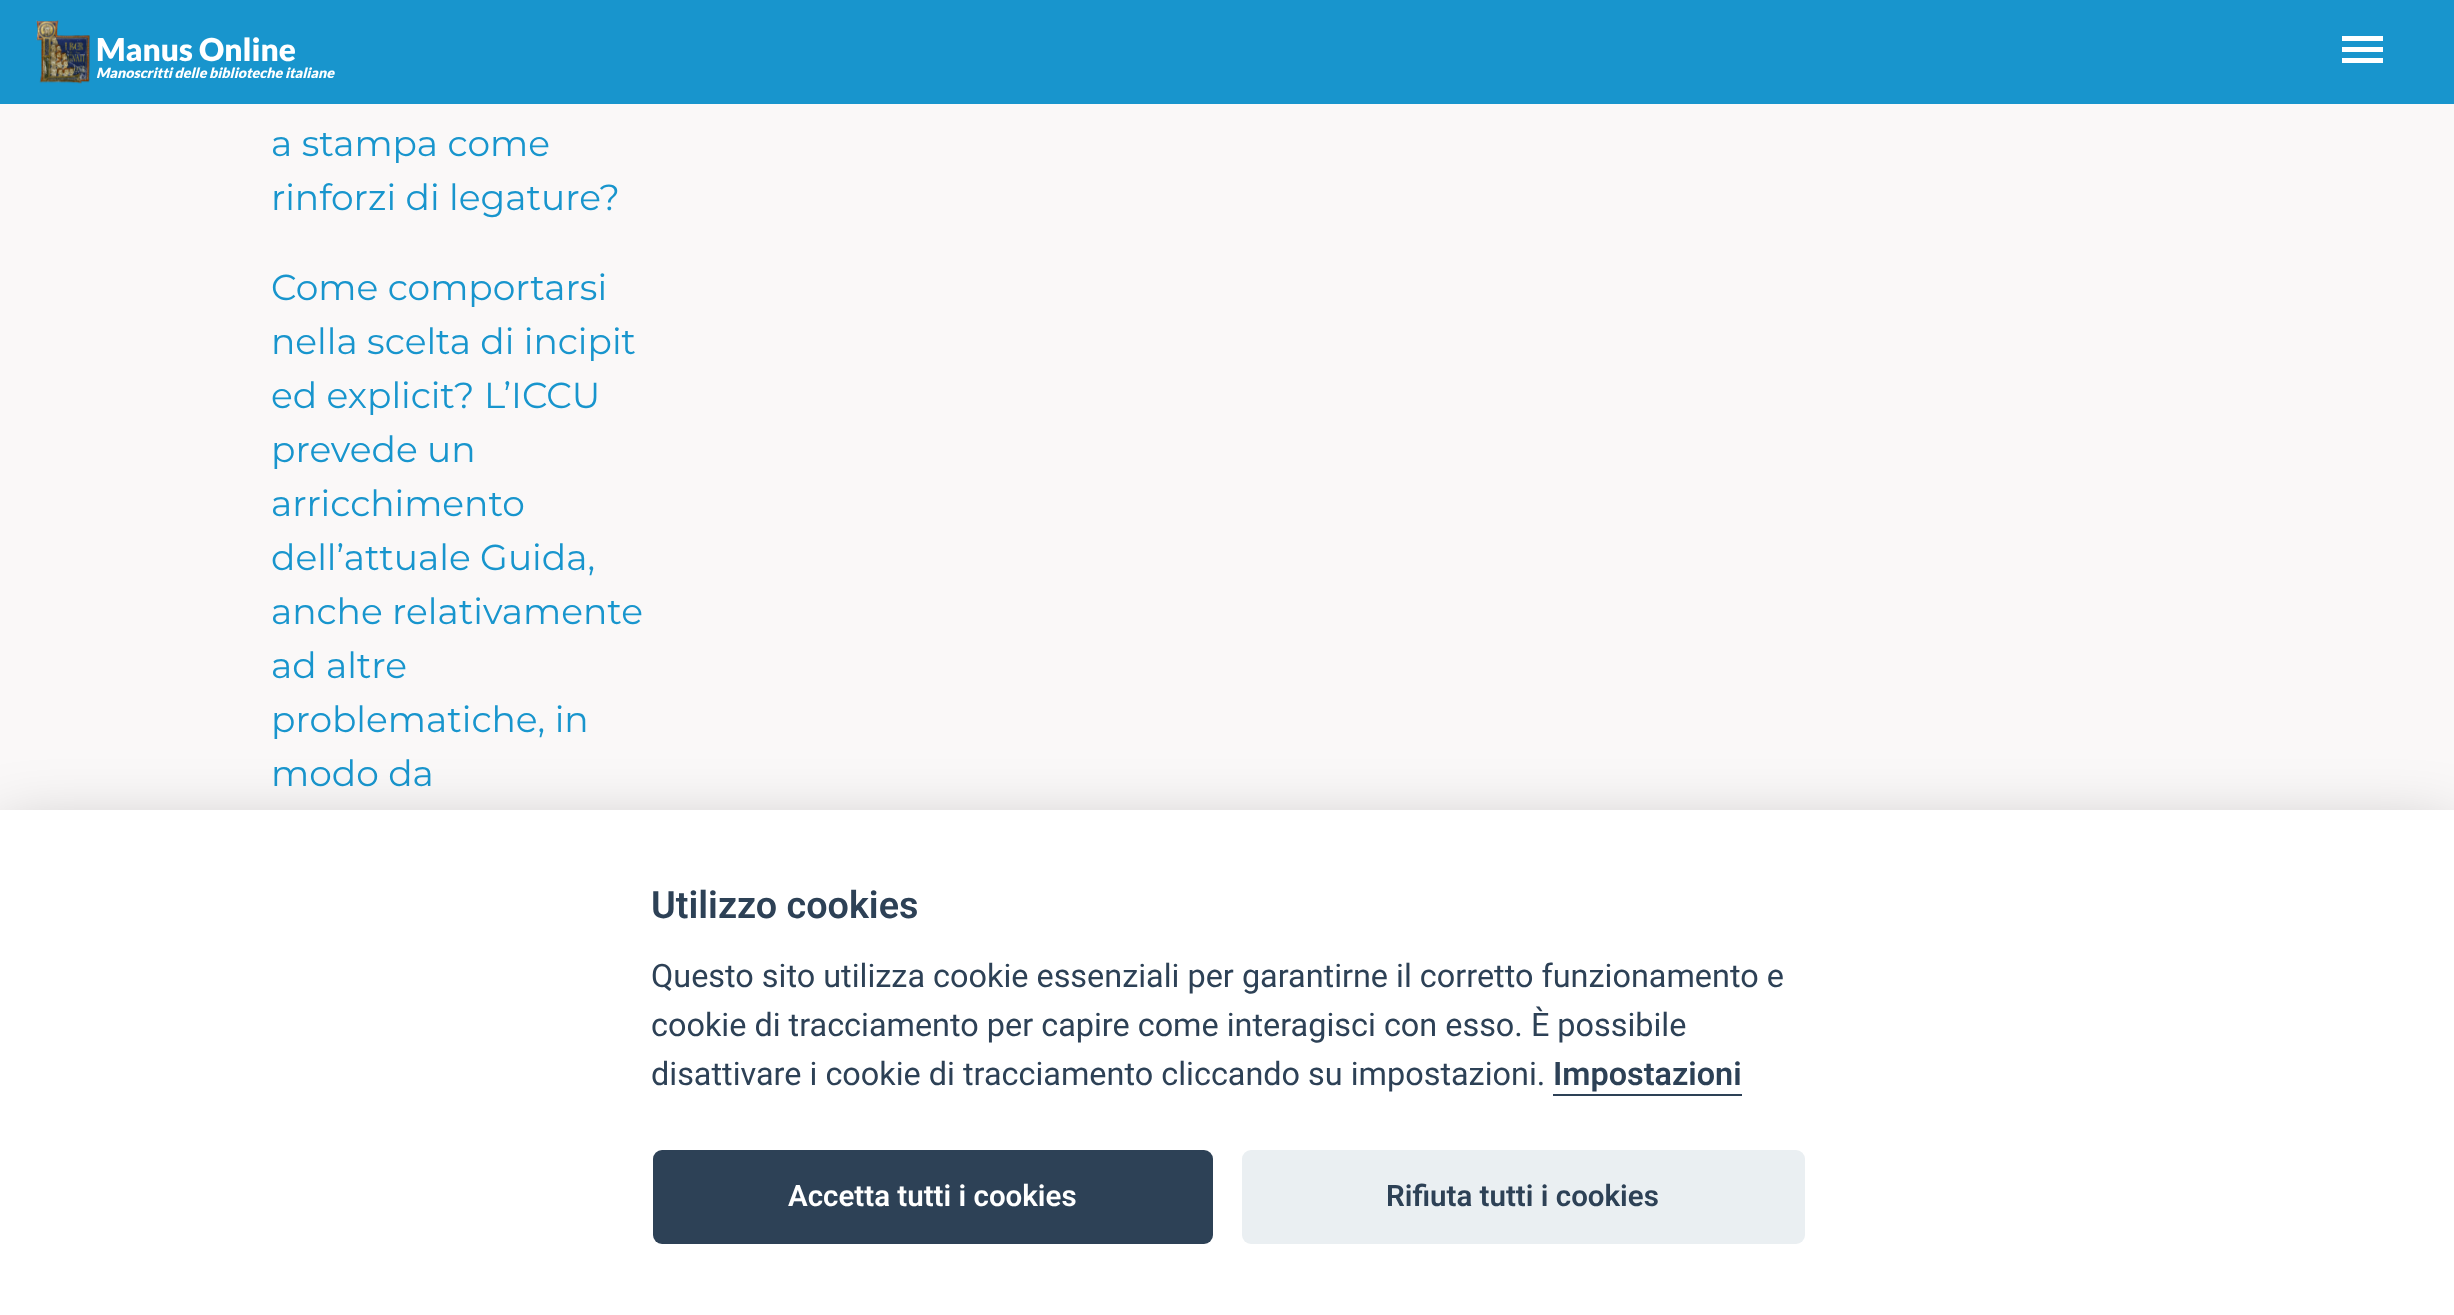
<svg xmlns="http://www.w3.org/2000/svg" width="2454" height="1315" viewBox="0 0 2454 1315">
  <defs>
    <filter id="blur1" x="-50%" y="-200%" width="200%" height="500%"><feGaussianBlur stdDeviation="34"/></filter>
  </defs>
  <rect width="100%" height="100%" fill="#faf8f8"/>
  <rect x="0" y="0" width="2454" height="104" fill="#1895cd"/>
  <image x="36" y="20" width="54" height="64" href="img1.png"/>
  <text x="96" y="61" font-family="Lato" font-size="31.5" font-weight="900" fill="#ffffff">Manus Online</text>
  <text x="96" y="78" font-family="Lato" font-size="14.2" font-weight="900" font-style="italic" fill="#ffffff">Manoscritti delle biblioteche italiane</text>
  <path d="M2342 36H2383V41H2342ZM2342 52V47H2383V52ZM2342 63V58H2383V63Z" fill="#ffffff"/>
  <text x="271" y="156" font-family="Montserrat" font-size="36" fill="#1895cd">a stampa come</text>
  <text x="271" y="210" font-family="Montserrat" font-size="36" fill="#1895cd">rinforzi di legature?</text>
  <text x="271" y="300" font-family="Montserrat" font-size="36" fill="#1895cd">Come comportarsi</text>
  <text x="271" y="354" font-family="Montserrat" font-size="36" fill="#1895cd">nella scelta di incipit</text>
  <text x="271" y="408" font-family="Montserrat" font-size="36" fill="#1895cd">ed explicit? L’ICCU</text>
  <text x="271" y="462" font-family="Montserrat" font-size="36" fill="#1895cd">prevede un</text>
  <text x="271" y="516" font-family="Montserrat" font-size="36" fill="#1895cd">arricchimento</text>
  <text x="271" y="570" font-family="Montserrat" font-size="36" fill="#1895cd">dell’attuale Guida,</text>
  <text x="271" y="624" font-family="Montserrat" font-size="36" fill="#1895cd">anche relativamente</text>
  <text x="271" y="678" font-family="Montserrat" font-size="36" fill="#1895cd">ad altre</text>
  <text x="271" y="732" font-family="Montserrat" font-size="36" fill="#1895cd">problematiche, in</text>
  <text x="271" y="786" font-family="Montserrat" font-size="36" fill="#1895cd">modo da</text>
  <rect x="0" y="833" width="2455" height="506" fill="#020203" fill-opacity="0.28" filter="url(#blur1)"/>
  <rect x="0" y="810" width="2454" height="505" fill="#ffffff"/>
  <text x="651" y="918" font-family="Roboto" font-size="37.75" font-weight="600" fill="#2d4156">Utilizzo cookies</text>
  <text x="651" y="987" font-family="Roboto" font-size="32.4" fill="#2d4156">Questo sito utilizza cookie essenziali per garantirne il corretto funzionamento e</text>
  <text x="651" y="1036" font-family="Roboto" font-size="32.4" fill="#2d4156">cookie di tracciamento per capire come interagisci con esso. È possibile</text>
  <text x="651" y="1085" font-family="Roboto" font-size="32.4" fill="#2d4156">disattivare i cookie di tracciamento cliccando su impostazioni.</text>
  <text x="1553" y="1085" font-family="Roboto" font-size="32.4" font-weight="600" fill="#2d4156">Impostazioni</text>
  <rect x="1553" y="1094" width="189" height="2" fill="#2d4156"/>
  <rect x="653" y="1150" width="560" height="94" rx="9" fill="#2d4156"/>
  <text x="788" y="1206" font-family="Roboto" font-size="29.5" font-weight="600" fill="#ffffff">Accetta tutti i cookies</text>
  <rect x="1242" y="1150" width="563" height="94" rx="9" fill="#eaeff2"/>
  <text x="1386" y="1206" font-family="Roboto" font-size="29.5" font-weight="600" fill="#2d4156">Rifiuta tutti i cookies</text>
</svg>
